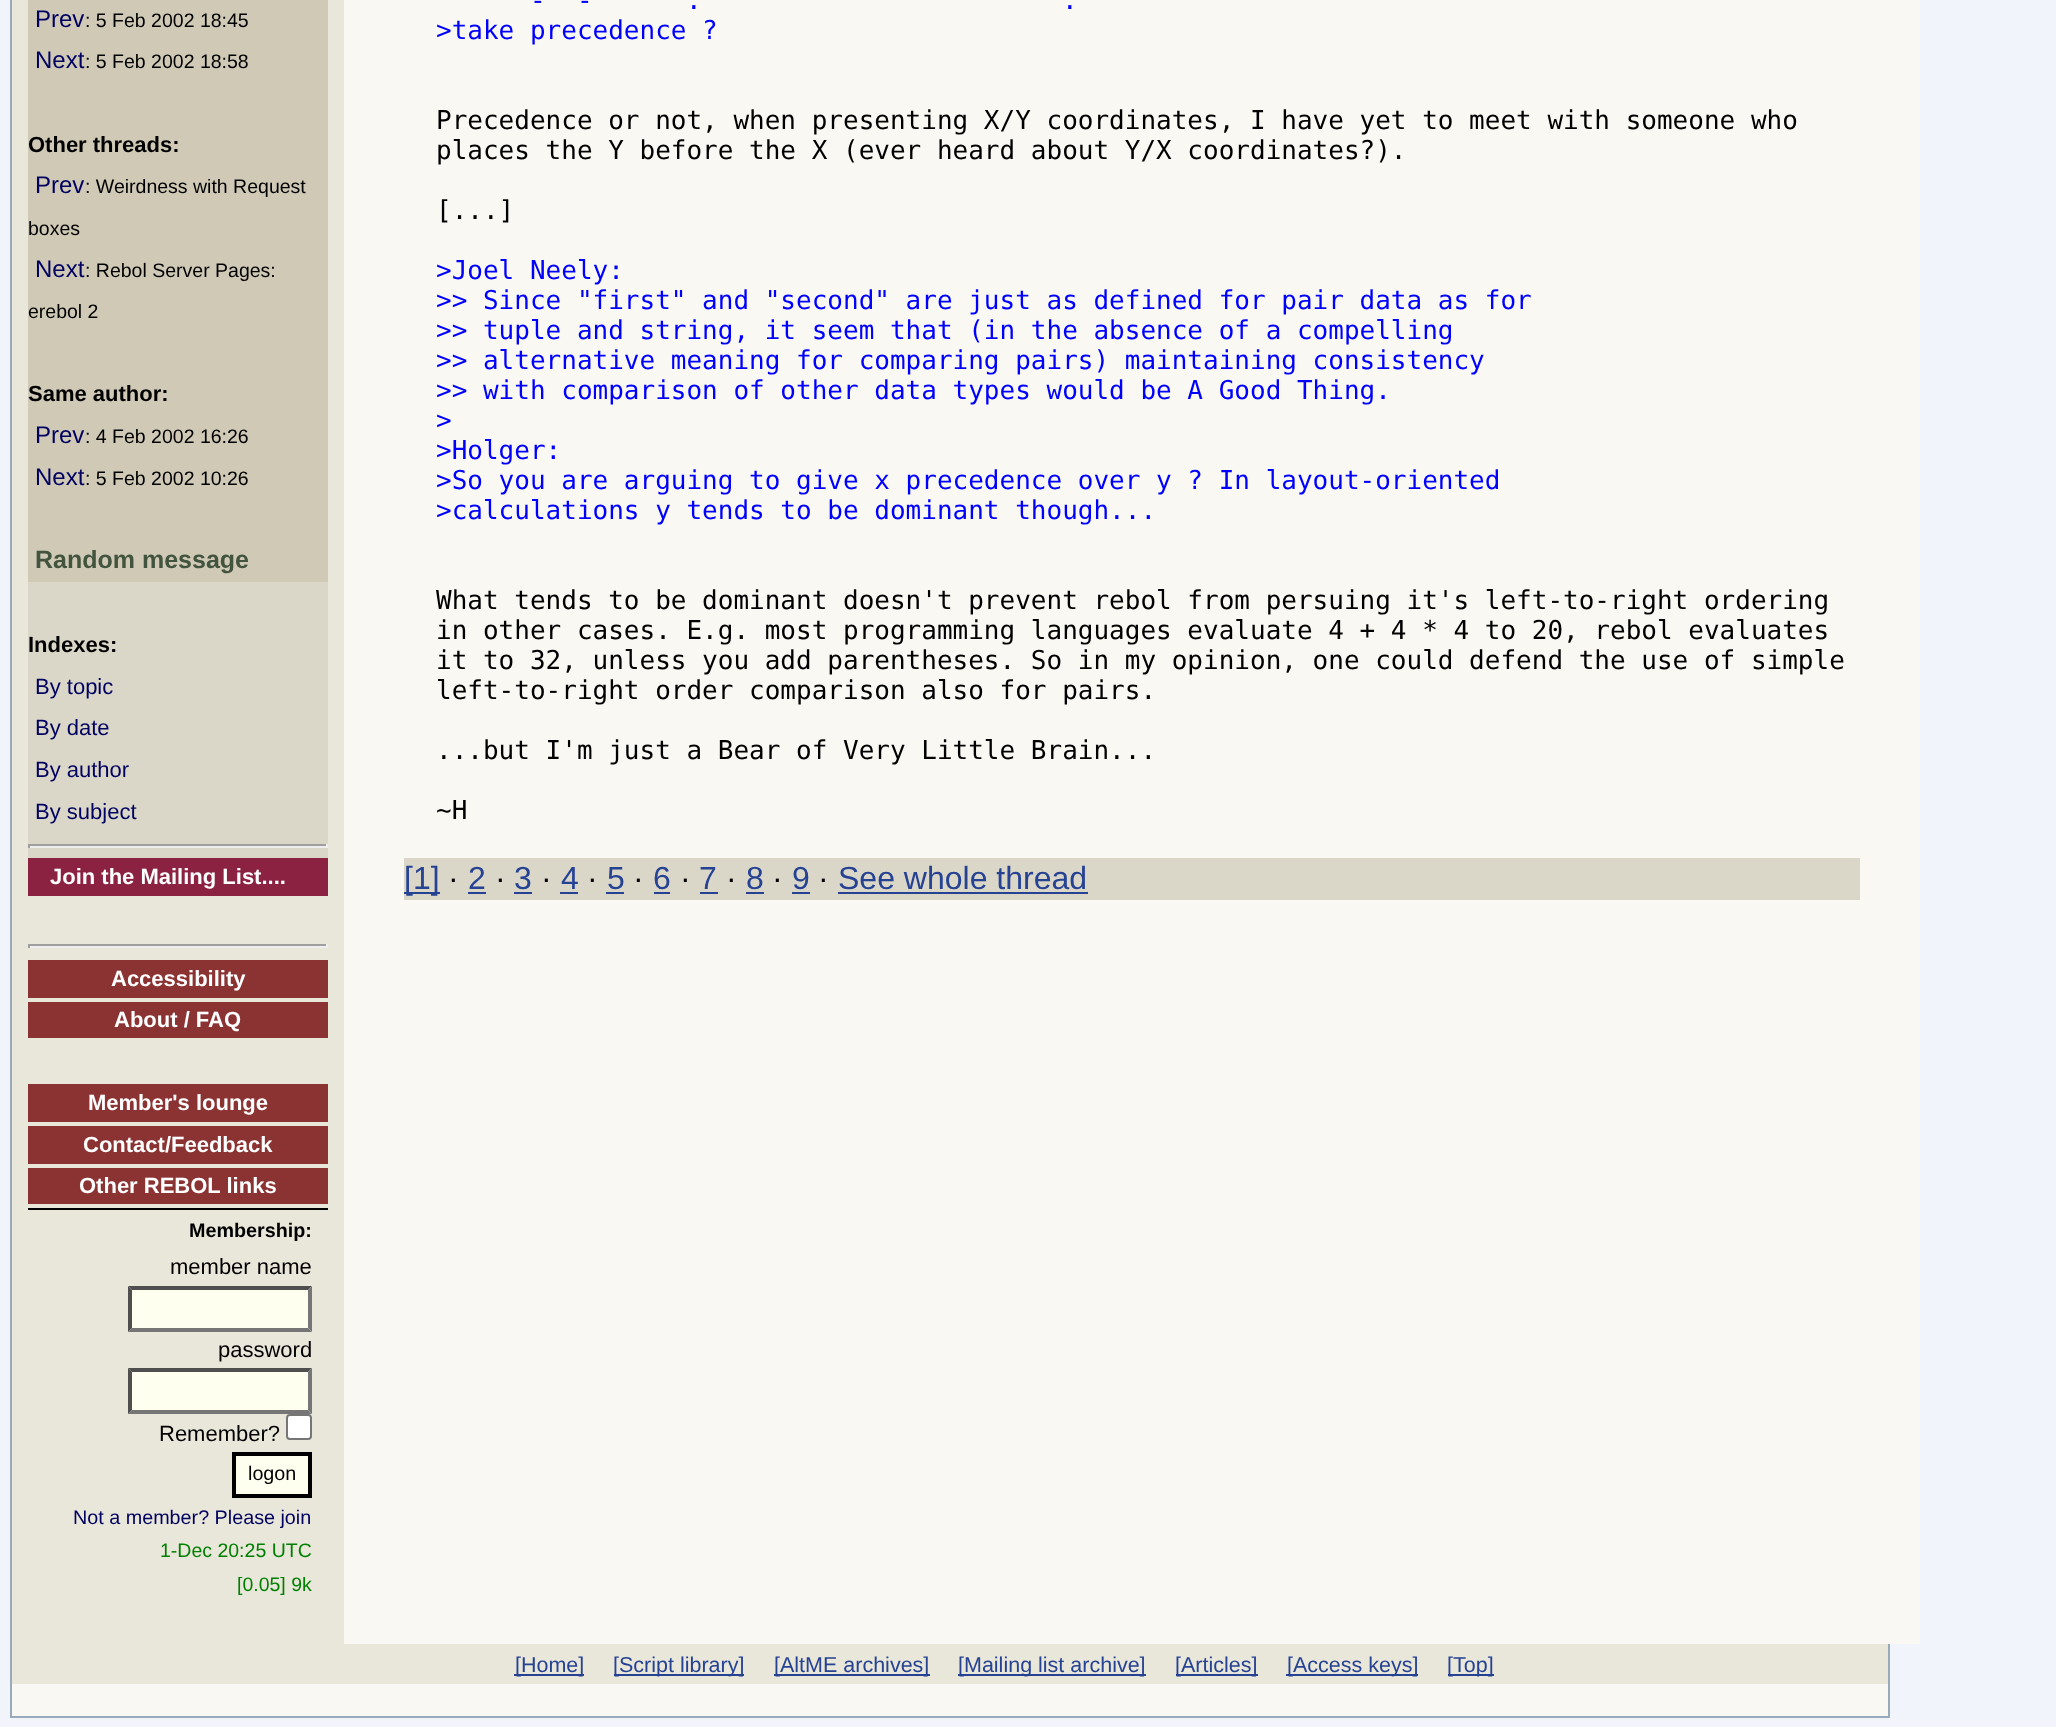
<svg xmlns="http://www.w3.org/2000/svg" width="2056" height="1727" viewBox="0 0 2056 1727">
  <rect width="100%" height="100%" fill="#f1f4fb"/>
  <rect x="12" y="1684" width="1876" height="32" fill="#f9f8f2"/>
  <rect x="11" y="-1" width="1878" height="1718" fill="none" stroke="#99abbb" stroke-width="2"/>
  <rect x="344" y="0" width="1576" height="1644" fill="#f9f8f2"/>
  <rect x="12" y="0" width="332" height="1644" fill="#e9e6da"/>
  <rect x="28" y="0" width="300" height="582" fill="#cfc9b6"/>
  <text x="35" y="27" font-family="Liberation Sans" font-size="24" fill="#000060">Prev</text>
  <text x="85" y="27" font-family="Liberation Sans" font-size="19.5" fill="#000000">: 5 Feb 2002 18:45</text>
  <text x="35" y="68" font-family="Liberation Sans" font-size="24" fill="#000060">Next</text>
  <text x="85" y="68" font-family="Liberation Sans" font-size="19.5" fill="#000000">: 5 Feb 2002 18:58</text>
  <text x="28" y="152" font-family="Liberation Sans" font-size="22" font-weight="bold" fill="#000000">Other threads:</text>
  <text x="35" y="193" font-family="Liberation Sans" font-size="24" fill="#000060">Prev</text>
  <text x="85" y="193" font-family="Liberation Sans" font-size="19.5" fill="#000000">: Weirdness with Request</text>
  <text x="28" y="235" font-family="Liberation Sans" font-size="19.5" fill="#000000">boxes</text>
  <text x="35" y="277" font-family="Liberation Sans" font-size="24" fill="#000060">Next</text>
  <text x="85" y="277" font-family="Liberation Sans" font-size="19.5" fill="#000000">: Rebol Server Pages:</text>
  <text x="28" y="318" font-family="Liberation Sans" font-size="19.5" fill="#000000">erebol 2</text>
  <text x="28" y="401" font-family="Liberation Sans" font-size="22" font-weight="bold" fill="#000000">Same author:</text>
  <text x="35" y="443" font-family="Liberation Sans" font-size="24" fill="#000060">Prev</text>
  <text x="85" y="443" font-family="Liberation Sans" font-size="19.5" fill="#000000">: 4 Feb 2002 16:26</text>
  <text x="35" y="485" font-family="Liberation Sans" font-size="24" fill="#000060">Next</text>
  <text x="85" y="485" font-family="Liberation Sans" font-size="19.5" fill="#000000">: 5 Feb 2002 10:26</text>
  <text x="35" y="568" font-family="Liberation Sans" font-size="25" font-weight="bold" fill="#42543e">Random message</text>
  <rect x="28" y="582" width="300" height="276" fill="#dbd7c8"/>
  <text x="28" y="652" font-family="Liberation Sans" font-size="22" font-weight="bold" fill="#000000">Indexes:</text>
  <text x="35" y="694" font-family="Liberation Sans" font-size="22" fill="#000060">By topic</text>
  <text x="35" y="735" font-family="Liberation Sans" font-size="22" fill="#000060">By date</text>
  <text x="35" y="777" font-family="Liberation Sans" font-size="22" fill="#000060">By author</text>
  <text x="35" y="819" font-family="Liberation Sans" font-size="22" fill="#000060">By subject</text>
  <rect x="28" y="844" width="300" height="2" fill="#9f9f9f"/>
  <rect x="326" y="844" width="2" height="4" fill="#eeeeee"/>
  <rect x="28" y="846" width="300" height="2" fill="#eeeeee"/>
  <rect x="28" y="844" width="2" height="4" fill="#9f9f9f"/>
  <rect x="28" y="858" width="300" height="38" fill="#8b2242"/>
  <text x="50" y="884" font-family="Liberation Sans" font-size="22" font-weight="bold" fill="#ffffff">Join the Mailing List....</text>
  <rect x="28" y="1208" width="300" height="2" fill="#000000"/>
  <rect x="28" y="944" width="300" height="2" fill="#9f9f9f"/>
  <rect x="326" y="944" width="2" height="4" fill="#eeeeee"/>
  <rect x="28" y="946" width="300" height="2" fill="#eeeeee"/>
  <rect x="28" y="944" width="2" height="4" fill="#9f9f9f"/>
  <rect x="28" y="960" width="300" height="38" fill="#8b3232"/>
  <text x="111" y="986" font-family="Liberation Sans" font-size="22" font-weight="bold" fill="#ffffff">Accessibility</text>
  <rect x="28" y="1002" width="300" height="36" fill="#8b3232"/>
  <text x="114" y="1027" font-family="Liberation Sans" font-size="22" font-weight="bold" fill="#ffffff">About / FAQ</text>
  <rect x="28" y="1084" width="300" height="38" fill="#8b3232"/>
  <text x="88" y="1110" font-family="Liberation Sans" font-size="22" font-weight="bold" fill="#ffffff">Member's lounge</text>
  <rect x="28" y="1126" width="300" height="38" fill="#8b3232"/>
  <text x="83" y="1152" font-family="Liberation Sans" font-size="22" font-weight="bold" fill="#ffffff">Contact/Feedback</text>
  <rect x="28" y="1168" width="300" height="36" fill="#8b3232"/>
  <text x="79" y="1193" font-family="Liberation Sans" font-size="22" font-weight="bold" fill="#ffffff">Other REBOL links</text>
  <text x="189" y="1237" font-family="Liberation Sans" font-size="19.75" font-weight="bold" fill="#000000">Membership:</text>
  <text x="170" y="1274" font-family="Liberation Sans" font-size="22" fill="#000000">member name</text>
  <rect x="128" y="1286" width="184" height="46" fill="#fffff0"/>
  <path d="M128 1286H312L308 1290H132Z" fill="#4f4f4f"/>
  <path d="M312 1286V1332L308 1328V1290Z" fill="#767676"/>
  <path d="M312 1332H128L132 1328H308Z" fill="#767676"/>
  <path d="M128 1332V1286L132 1290V1328Z" fill="#4f4f4f"/>
  <text x="218" y="1357" font-family="Liberation Sans" font-size="22" fill="#000000">password</text>
  <rect x="128" y="1368" width="184" height="46" fill="#fffff0"/>
  <path d="M128 1368H312L308 1372H132Z" fill="#4f4f4f"/>
  <path d="M312 1368V1414L308 1410V1372Z" fill="#767676"/>
  <path d="M312 1414H128L132 1410H308Z" fill="#767676"/>
  <path d="M128 1414V1368L132 1372V1410Z" fill="#4f4f4f"/>
  <text x="159" y="1441" font-family="Liberation Sans" font-size="22" fill="#000000">Remember?</text>
  <rect x="287" y="1415" width="24" height="24" rx="3" fill="#ffffff" stroke="#767676" stroke-width="2"/>
  <rect x="234" y="1454" width="76" height="42" fill="#fffff0" stroke="#000000" stroke-width="4"/>
  <text x="248" y="1480" font-family="Liberation Sans" font-size="19.75" fill="#000000">logon</text>
  <text x="73" y="1524" font-family="Liberation Sans" font-size="19.75" fill="#000060">Not a member? Please join</text>
  <text x="160" y="1557" font-family="Liberation Sans" font-size="19.5" fill="#008000">1-Dec 20:25 UTC</text>
  <text x="237" y="1591" font-family="Liberation Sans" font-size="19.5" fill="#008000">[0.05] 9k</text>
  <text x="530" y="9" font-family="DejaVu Sans Mono" font-size="26" fill="#0000ff">-</text>
  <text x="577" y="9" font-family="DejaVu Sans Mono" font-size="26" fill="#0000ff">-</text>
  <text x="686" y="9" font-family="DejaVu Sans Mono" font-size="26" fill="#0000ff">.</text>
  <text x="1062" y="9" font-family="DejaVu Sans Mono" font-size="26" fill="#0000ff">.</text>
  <text x="436" y="39" font-family="DejaVu Sans Mono" font-size="26" fill="#0000ff">&gt;take precedence ?</text>
  <text x="436" y="129" font-family="DejaVu Sans Mono" font-size="26" fill="#000000">Precedence or not, when presenting X/Y coordinates, I have yet to meet with someone who</text>
  <text x="436" y="159" font-family="DejaVu Sans Mono" font-size="26" fill="#000000">places the Y before the X (ever heard about Y/X coordinates?).</text>
  <text x="436" y="219" font-family="DejaVu Sans Mono" font-size="26" fill="#000000">[...]</text>
  <text x="436" y="279" font-family="DejaVu Sans Mono" font-size="26" fill="#0000ff">&gt;Joel Neely:</text>
  <text x="436" y="309" font-family="DejaVu Sans Mono" font-size="26" fill="#0000ff">&gt;&gt; Since "first" and "second" are just as defined for pair data as for</text>
  <text x="436" y="339" font-family="DejaVu Sans Mono" font-size="26" fill="#0000ff">&gt;&gt; tuple and string, it seem that (in the absence of a compelling</text>
  <text x="436" y="369" font-family="DejaVu Sans Mono" font-size="26" fill="#0000ff">&gt;&gt; alternative meaning for comparing pairs) maintaining consistency</text>
  <text x="436" y="399" font-family="DejaVu Sans Mono" font-size="26" fill="#0000ff">&gt;&gt; with comparison of other data types would be A Good Thing.</text>
  <text x="436" y="429" font-family="DejaVu Sans Mono" font-size="26" fill="#0000ff">&gt;</text>
  <text x="436" y="459" font-family="DejaVu Sans Mono" font-size="26" fill="#0000ff">&gt;Holger:</text>
  <text x="436" y="489" font-family="DejaVu Sans Mono" font-size="26" fill="#0000ff">&gt;So you are arguing to give x precedence over y ? In layout-oriented</text>
  <text x="436" y="519" font-family="DejaVu Sans Mono" font-size="26" fill="#0000ff">&gt;calculations y tends to be dominant though...</text>
  <text x="436" y="609" font-family="DejaVu Sans Mono" font-size="26" fill="#000000">What tends to be dominant doesn't prevent rebol from persuing it's left-to-right ordering</text>
  <text x="436" y="639" font-family="DejaVu Sans Mono" font-size="26" fill="#000000">in other cases. E.g. most programming languages evaluate 4 + 4 * 4 to 20, rebol evaluates</text>
  <text x="436" y="669" font-family="DejaVu Sans Mono" font-size="26" fill="#000000">it to 32, unless you add parentheses. So in my opinion, one could defend the use of simple</text>
  <text x="436" y="699" font-family="DejaVu Sans Mono" font-size="26" fill="#000000">left-to-right order comparison also for pairs.</text>
  <text x="436" y="759" font-family="DejaVu Sans Mono" font-size="26" fill="#000000">...but I'm just a Bear of Very Little Brain...</text>
  <text x="436" y="819" font-family="DejaVu Sans Mono" font-size="26" fill="#000000">~H</text>
  <rect x="404" y="858" width="1456" height="42" fill="#dbd7c8"/>
  <rect x="404" y="892" width="36" height="2" fill="#254293"/>
  <text x="404" y="889" font-family="Liberation Sans" font-size="32" fill="#254293">[1]</text>
  <text x="448" y="889" font-family="Liberation Sans" font-size="32" fill="#000000">·</text>
  <text x="468" y="889" font-family="Liberation Sans" font-size="32" fill="#254293">2</text>
  <rect x="468" y="892" width="18" height="2" fill="#254293"/>
  <text x="495" y="889" font-family="Liberation Sans" font-size="32" fill="#000000">·</text>
  <text x="514" y="889" font-family="Liberation Sans" font-size="32" fill="#254293">3</text>
  <rect x="514" y="892" width="18" height="2" fill="#254293"/>
  <text x="541" y="889" font-family="Liberation Sans" font-size="32" fill="#000000">·</text>
  <text x="561" y="889" font-family="Liberation Sans" font-size="32" fill="#254293">4</text>
  <rect x="560" y="892" width="18" height="2" fill="#254293"/>
  <text x="587" y="889" font-family="Liberation Sans" font-size="32" fill="#000000">·</text>
  <text x="607" y="889" font-family="Liberation Sans" font-size="32" fill="#254293">5</text>
  <rect x="606" y="892" width="18" height="2" fill="#254293"/>
  <text x="633" y="889" font-family="Liberation Sans" font-size="32" fill="#000000">·</text>
  <text x="653" y="889" font-family="Liberation Sans" font-size="32" fill="#254293">6</text>
  <rect x="654" y="892" width="16" height="2" fill="#254293"/>
  <text x="680" y="889" font-family="Liberation Sans" font-size="32" fill="#000000">·</text>
  <text x="699" y="889" font-family="Liberation Sans" font-size="32" fill="#254293">7</text>
  <rect x="700" y="892" width="18" height="2" fill="#254293"/>
  <text x="726" y="889" font-family="Liberation Sans" font-size="32" fill="#000000">·</text>
  <text x="746" y="889" font-family="Liberation Sans" font-size="32" fill="#254293">8</text>
  <rect x="746" y="892" width="18" height="2" fill="#254293"/>
  <text x="772" y="889" font-family="Liberation Sans" font-size="32" fill="#000000">·</text>
  <text x="792" y="889" font-family="Liberation Sans" font-size="32" fill="#254293">9</text>
  <rect x="792" y="892" width="18" height="2" fill="#254293"/>
  <text x="818" y="889" font-family="Liberation Sans" font-size="32" fill="#000000">·</text>
  <text x="838" y="889" font-family="Liberation Sans" font-size="32" fill="#254293">See whole thread</text>
  <rect x="838" y="892" width="250" height="2" fill="#254293"/>
  <rect x="12" y="1644" width="1876" height="40" fill="#e9e6da"/>
  <rect x="514" y="1674" width="70" height="2" fill="#254293"/>
  <text x="515" y="1672" font-family="Liberation Sans" font-size="21.5" fill="#254293">[Home]</text>
  <rect x="614" y="1674" width="130" height="2" fill="#254293"/>
  <text x="613" y="1672" font-family="Liberation Sans" font-size="21.5" fill="#254293">[Script library]</text>
  <rect x="774" y="1674" width="156" height="2" fill="#254293"/>
  <text x="774" y="1672" font-family="Liberation Sans" font-size="21.5" fill="#254293">[AltME archives]</text>
  <rect x="958" y="1674" width="188" height="2" fill="#254293"/>
  <text x="958" y="1672" font-family="Liberation Sans" font-size="21.5" fill="#254293">[Mailing list archive]</text>
  <rect x="1176" y="1674" width="82" height="2" fill="#254293"/>
  <text x="1175" y="1672" font-family="Liberation Sans" font-size="21.5" fill="#254293">[Articles]</text>
  <rect x="1286" y="1674" width="132" height="2" fill="#254293"/>
  <text x="1287" y="1672" font-family="Liberation Sans" font-size="21.5" fill="#254293">[Access keys]</text>
  <rect x="1448" y="1674" width="46" height="2" fill="#254293"/>
  <text x="1447" y="1672" font-family="Liberation Sans" font-size="21.5" fill="#254293">[Top]</text>
</svg>
